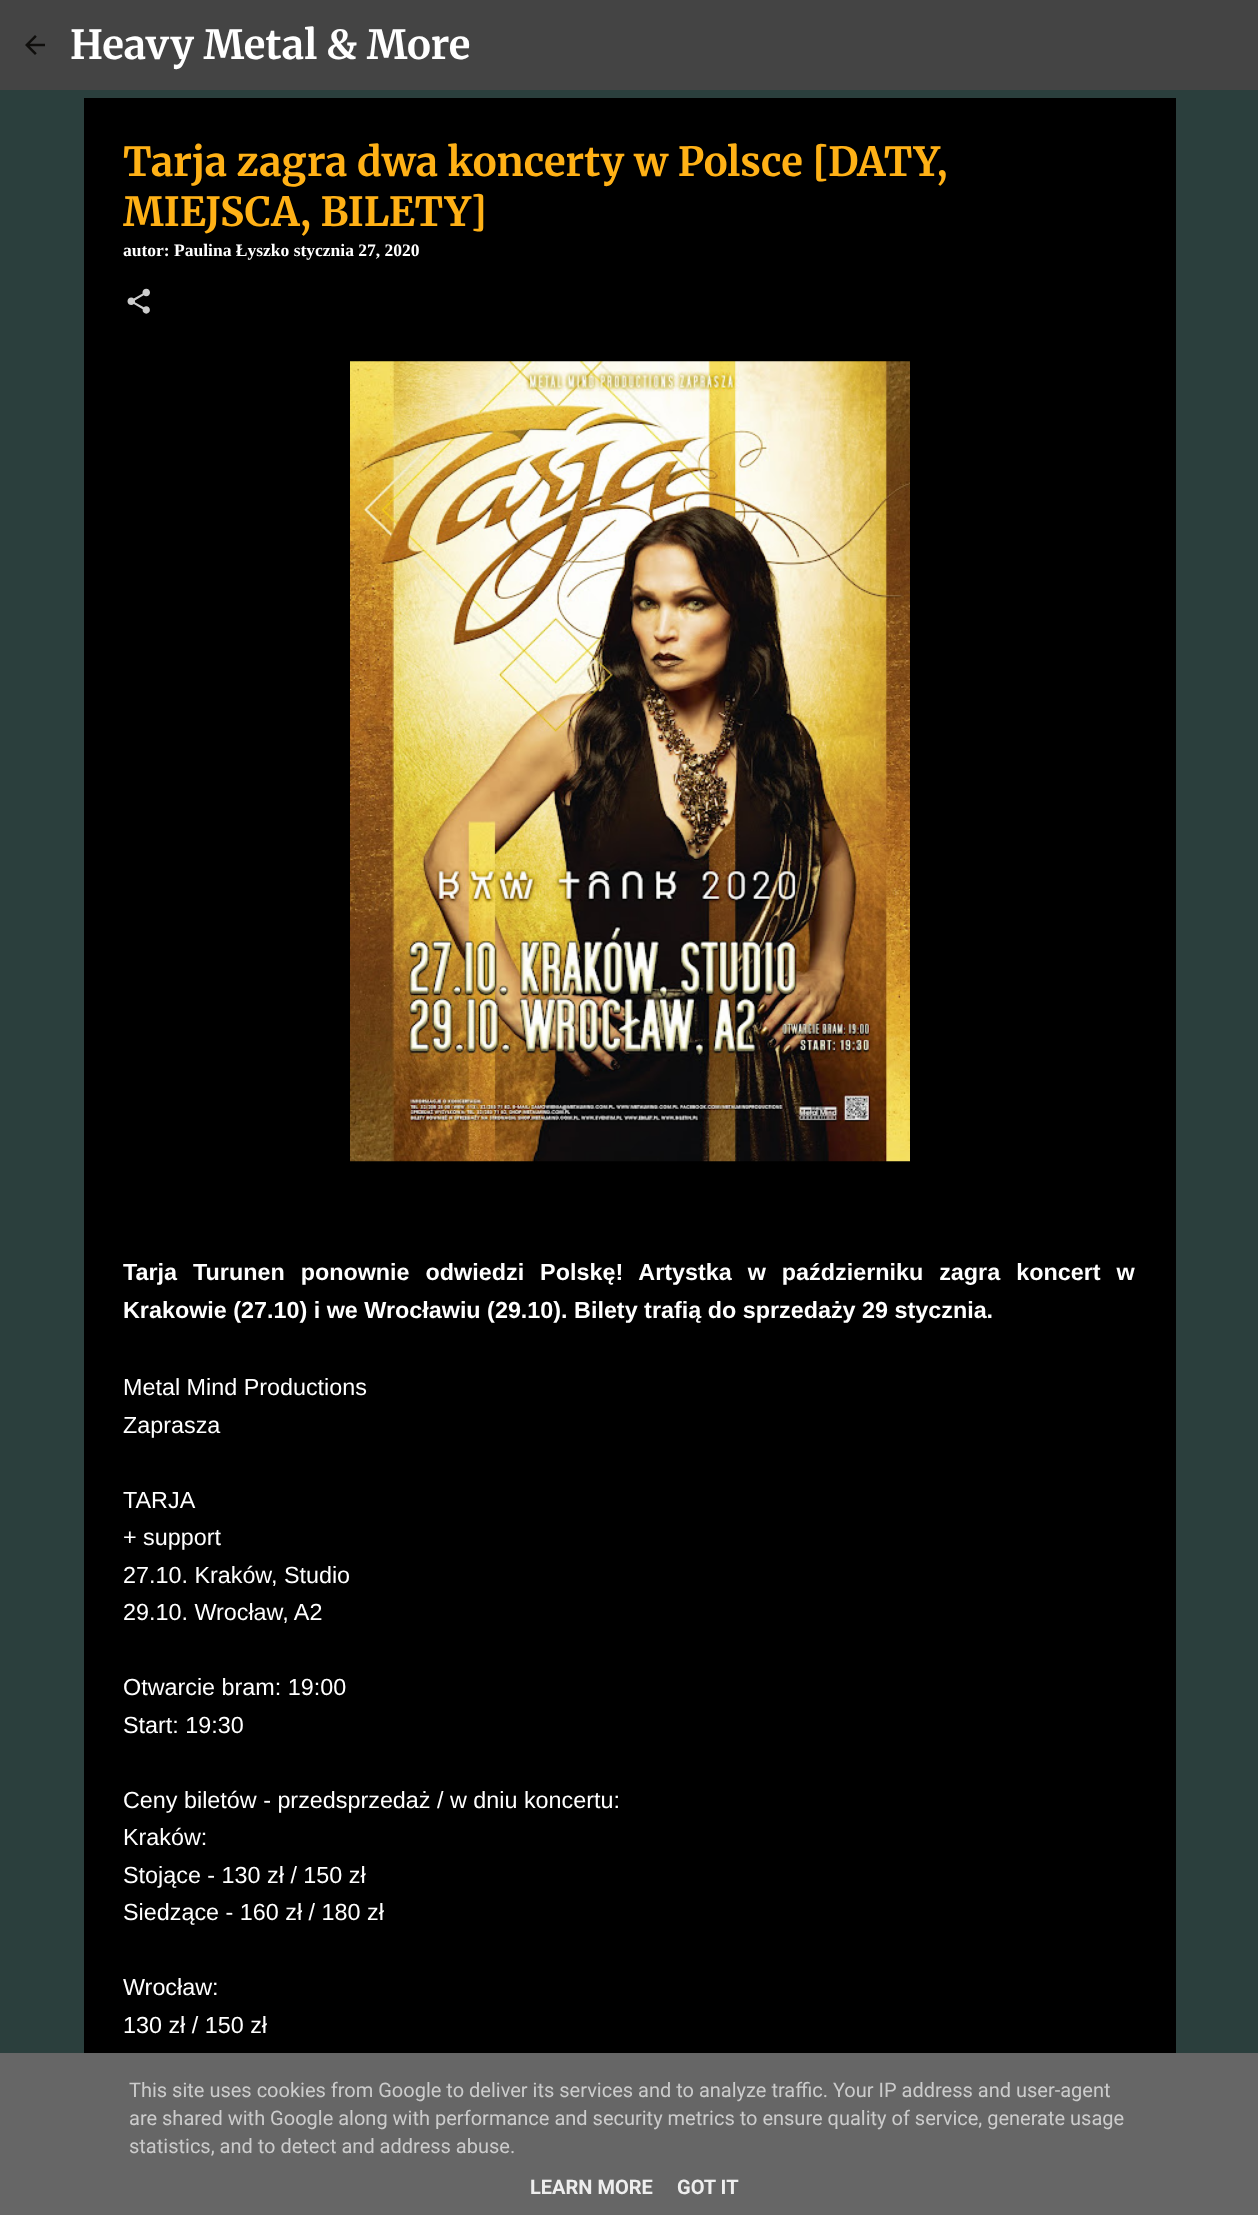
<svg xmlns="http://www.w3.org/2000/svg" width="1258" height="2215" viewBox="0 0 1258 2215">
  <rect width="100%" height="100%" fill="#2b3f3d"/>
  <rect x="0" y="0" width="1258" height="90" fill="#444444"/>
  <image x="25" y="35" width="20" height="20" href="img1.png"/>
  <text x="70" y="59" font-family="Merriweather" font-size="40" font-weight="bold" fill="#ffffff">Heavy Metal &amp; More</text>
  <rect x="84" y="98" width="1092" height="1955" fill="#000000"/>
  <text x="123" y="176" font-family="Merriweather" font-size="40" font-weight="bold" fill="#ffb116">Tarja zagra dwa koncerty w Polsce [DATY,</text>
  <text x="123" y="226" font-family="Merriweather" font-size="40" font-weight="bold" fill="#ffb116">MIEJSCA, BILETY]</text>
  <text x="123" y="256" font-family="Liberation Serif" font-size="17.5" font-weight="bold" fill="#ffffff">autor: Paulina Łyszko stycznia 27, 2020</text>
  <image x="127" y="288" width="23" height="26" href="img2.png"/>
  <image x="350" y="361" width="560" height="801" href="img3.png"/>
  <text x="123" y="1280" word-spacing="9.5" font-family="Liberation Sans" font-size="23.35" font-weight="bold" fill="#ffffff">Tarja Turunen ponownie odwiedzi Polskę! Artystka w październiku zagra koncert w</text>
  <text x="123" y="1318" font-family="Liberation Sans" font-size="23.35" font-weight="bold" fill="#ffffff">Krakowie (27.10) i we Wrocławiu (29.10). Bilety trafią do sprzedaży 29 stycznia.</text>
  <text x="123" y="1395" font-family="Liberation Sans" font-size="23.35" fill="#ffffff">Metal Mind Productions</text>
  <text x="123" y="1433" font-family="Liberation Sans" font-size="23.35" fill="#ffffff">Zaprasza</text>
  <text x="123" y="1508" font-family="Liberation Sans" font-size="23.35" fill="#ffffff">TARJA</text>
  <text x="123" y="1545" font-family="Liberation Sans" font-size="23.35" fill="#ffffff">+ support</text>
  <text x="123" y="1583" font-family="Liberation Sans" font-size="23.35" fill="#ffffff">27.10. Kraków, Studio</text>
  <text x="123" y="1620" font-family="Liberation Sans" font-size="23.35" fill="#ffffff">29.10. Wrocław, A2</text>
  <text x="123" y="1695" font-family="Liberation Sans" font-size="23.35" fill="#ffffff">Otwarcie bram: 19:00</text>
  <text x="123" y="1733" font-family="Liberation Sans" font-size="23.35" fill="#ffffff">Start: 19:30</text>
  <text x="123" y="1808" font-family="Liberation Sans" font-size="23.35" fill="#ffffff">Ceny biletów - przedsprzedaż / w dniu koncertu:</text>
  <text x="123" y="1845" font-family="Liberation Sans" font-size="23.35" fill="#ffffff">Kraków:</text>
  <text x="123" y="1883" font-family="Liberation Sans" font-size="23.35" fill="#ffffff">Stojące - 130 zł / 150 zł</text>
  <text x="123" y="1920" font-family="Liberation Sans" font-size="23.35" fill="#ffffff">Siedzące - 160 zł / 180 zł</text>
  <text x="123" y="1995" font-family="Liberation Sans" font-size="23.35" fill="#ffffff">Wrocław:</text>
  <text x="123" y="2033" font-family="Liberation Sans" font-size="23.35" fill="#ffffff">130 zł / 150 zł</text>
  <rect x="0" y="2053" width="1258" height="162" fill="#666666"/>
  <text x="129" y="2097" font-family="Roboto" font-size="20" fill="#cccccc">This site uses cookies from Google to deliver its services and to analyze traffic. Your IP address and user-agent</text>
  <text x="129" y="2125" font-family="Roboto" font-size="20" fill="#cccccc">are shared with Google along with performance and security metrics to ensure quality of service, generate usage</text>
  <text x="129" y="2153" font-family="Roboto" font-size="20" fill="#cccccc">statistics, and to detect and address abuse.</text>
  <text x="530" y="2194" font-family="Roboto" font-size="20" font-weight="bold" fill="#eeeeee">LEARN MORE</text>
  <text x="677" y="2194" font-family="Roboto" font-size="20" font-weight="bold" fill="#eeeeee">GOT IT</text>
</svg>
